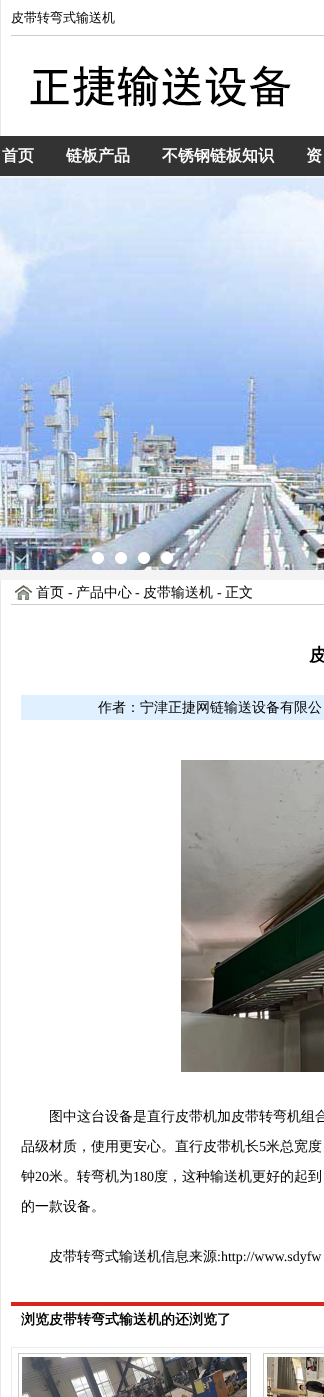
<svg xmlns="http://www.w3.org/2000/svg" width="324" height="1397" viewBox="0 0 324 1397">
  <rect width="100%" height="100%" fill="#f4f4f4"/>
  <rect x="1" y="0" width="323" height="136" fill="#ffffff"/>
  <rect x="0" y="0" width="1" height="136" fill="#e9e9e9"/>
  <rect x="11" y="35" width="313" height="1" fill="#cccccc"/>
  <text x="11" y="22" font-family="WenQuanYi Zen Hei" font-size="13" font-weight="500" fill="#000000">皮带转弯式输送机</text>
  <image x="30" y="65" width="261" height="42" href="img1.png"/>
  <rect x="0" y="136" width="324" height="40" fill="#333333"/>
  <text x="2" y="161" font-family="WenQuanYi Zen Hei" font-size="16" font-weight="bold" fill="#ffffff">首页</text>
  <text x="66" y="161" font-family="WenQuanYi Zen Hei" font-size="16" font-weight="bold" fill="#ffffff">链板产品</text>
  <text x="162" y="161" font-family="WenQuanYi Zen Hei" font-size="16" font-weight="bold" fill="#ffffff">不锈钢链板知识</text>
  <text x="306" y="161" font-family="WenQuanYi Zen Hei" font-size="16" font-weight="bold" fill="#ffffff">资</text>
  <image x="0" y="178" width="324" height="392" href="img2.png"/>
  <image x="91" y="551" width="13" height="13" href="img3.png"/>
  <image x="114" y="551" width="13" height="13" href="img4.png"/>
  <image x="137" y="551" width="13" height="13" href="img5.png"/>
  <image x="160" y="551" width="13" height="13" href="img6.png"/>
  <rect x="1" y="580" width="323" height="817" fill="#ffffff"/>
  <rect x="0" y="580" width="1" height="817" fill="#e9e9e9"/>
  <image x="11" y="584" width="313" height="21" href="img7.png"/>
  <text x="36" y="597" font-family="WenQuanYi Zen Hei" font-size="14" font-weight="500" fill="#000000">首页</text>
  <text x="68" y="597" font-family="Liberation Serif" font-size="14" fill="#000000">-</text>
  <text x="76" y="597" font-family="WenQuanYi Zen Hei" font-size="14" font-weight="500" fill="#000000">产品中心</text>
  <text x="135" y="597" font-family="Liberation Serif" font-size="14" fill="#000000">-</text>
  <text x="143" y="597" font-family="WenQuanYi Zen Hei" font-size="14" font-weight="500" fill="#000000">皮带输送机</text>
  <text x="217" y="597" font-family="Liberation Serif" font-size="14" fill="#000000">-</text>
  <text x="225" y="597" font-family="WenQuanYi Zen Hei" font-size="14" font-weight="500" fill="#000000">正文</text>
  <text x="309" y="661" font-family="WenQuanYi Zen Hei" font-size="18" font-weight="bold" fill="#000000">皮</text>
  <rect x="21" y="695" width="303" height="25" fill="#e0f0ff"/>
  <text x="98" y="712" font-family="WenQuanYi Zen Hei" font-size="14" font-weight="500" fill="#000000">作者：宁津正捷网链输送设备有限公</text>
  <image x="181" y="760" width="143" height="312" href="img8.png"/>
  <text x="49" y="1121" font-family="WenQuanYi Zen Hei" font-size="14" font-weight="500" fill="#000000">图中这台设备是直行皮带机加皮带转弯机组合</text>
  <text x="21" y="1151" font-family="WenQuanYi Zen Hei" font-size="14" font-weight="500" fill="#000000">品级材质，使用更安心。直行皮带机长</text>
  <text x="259" y="1151" font-family="Liberation Serif" font-size="14" fill="#000000">5</text>
  <text x="266" y="1151" font-family="WenQuanYi Zen Hei" font-size="14" font-weight="500" fill="#000000">米总宽度</text>
  <text x="21" y="1181" font-family="WenQuanYi Zen Hei" font-size="14" font-weight="500" fill="#000000">钟</text>
  <text x="35" y="1181" font-family="Liberation Serif" font-size="14" fill="#000000">20</text>
  <text x="49" y="1181" font-family="WenQuanYi Zen Hei" font-size="14" font-weight="500" fill="#000000">米。转弯机为</text>
  <text x="133" y="1181" font-family="Liberation Serif" font-size="14" fill="#000000">180</text>
  <text x="154" y="1181" font-family="WenQuanYi Zen Hei" font-size="14" font-weight="500" fill="#000000">度，这种输送机更好的起到</text>
  <text x="21" y="1211" font-family="WenQuanYi Zen Hei" font-size="14" font-weight="500" fill="#000000">的一款设备。</text>
  <text x="49" y="1261" font-family="WenQuanYi Zen Hei" font-size="14" font-weight="500" fill="#000000">皮带转弯式输送机信息来源</text>
  <text x="217" y="1261" font-family="Liberation Serif" font-size="14" fill="#000000">:http://www.sdyfw</text>
  <rect x="11" y="1302" width="313" height="4" fill="#d7261e"/>
  <text x="21" y="1324" font-family="WenQuanYi Zen Hei" font-size="14" font-weight="bold" fill="#000000">浏览皮带转弯式输送机的还浏览了</text>
  <rect x="11.5" y="1347.5" width="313" height="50" fill="none" stroke="#ececec"/>
  <rect x="18.5" y="1353.5" width="232" height="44" fill="none" stroke="#cccccc"/>
  <image x="22" y="1357" width="225" height="40" href="img9.png"/>
  <rect x="263.5" y="1353.5" width="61" height="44" fill="none" stroke="#cccccc"/>
  <image x="267" y="1357" width="57" height="40" href="img10.png"/>
</svg>
